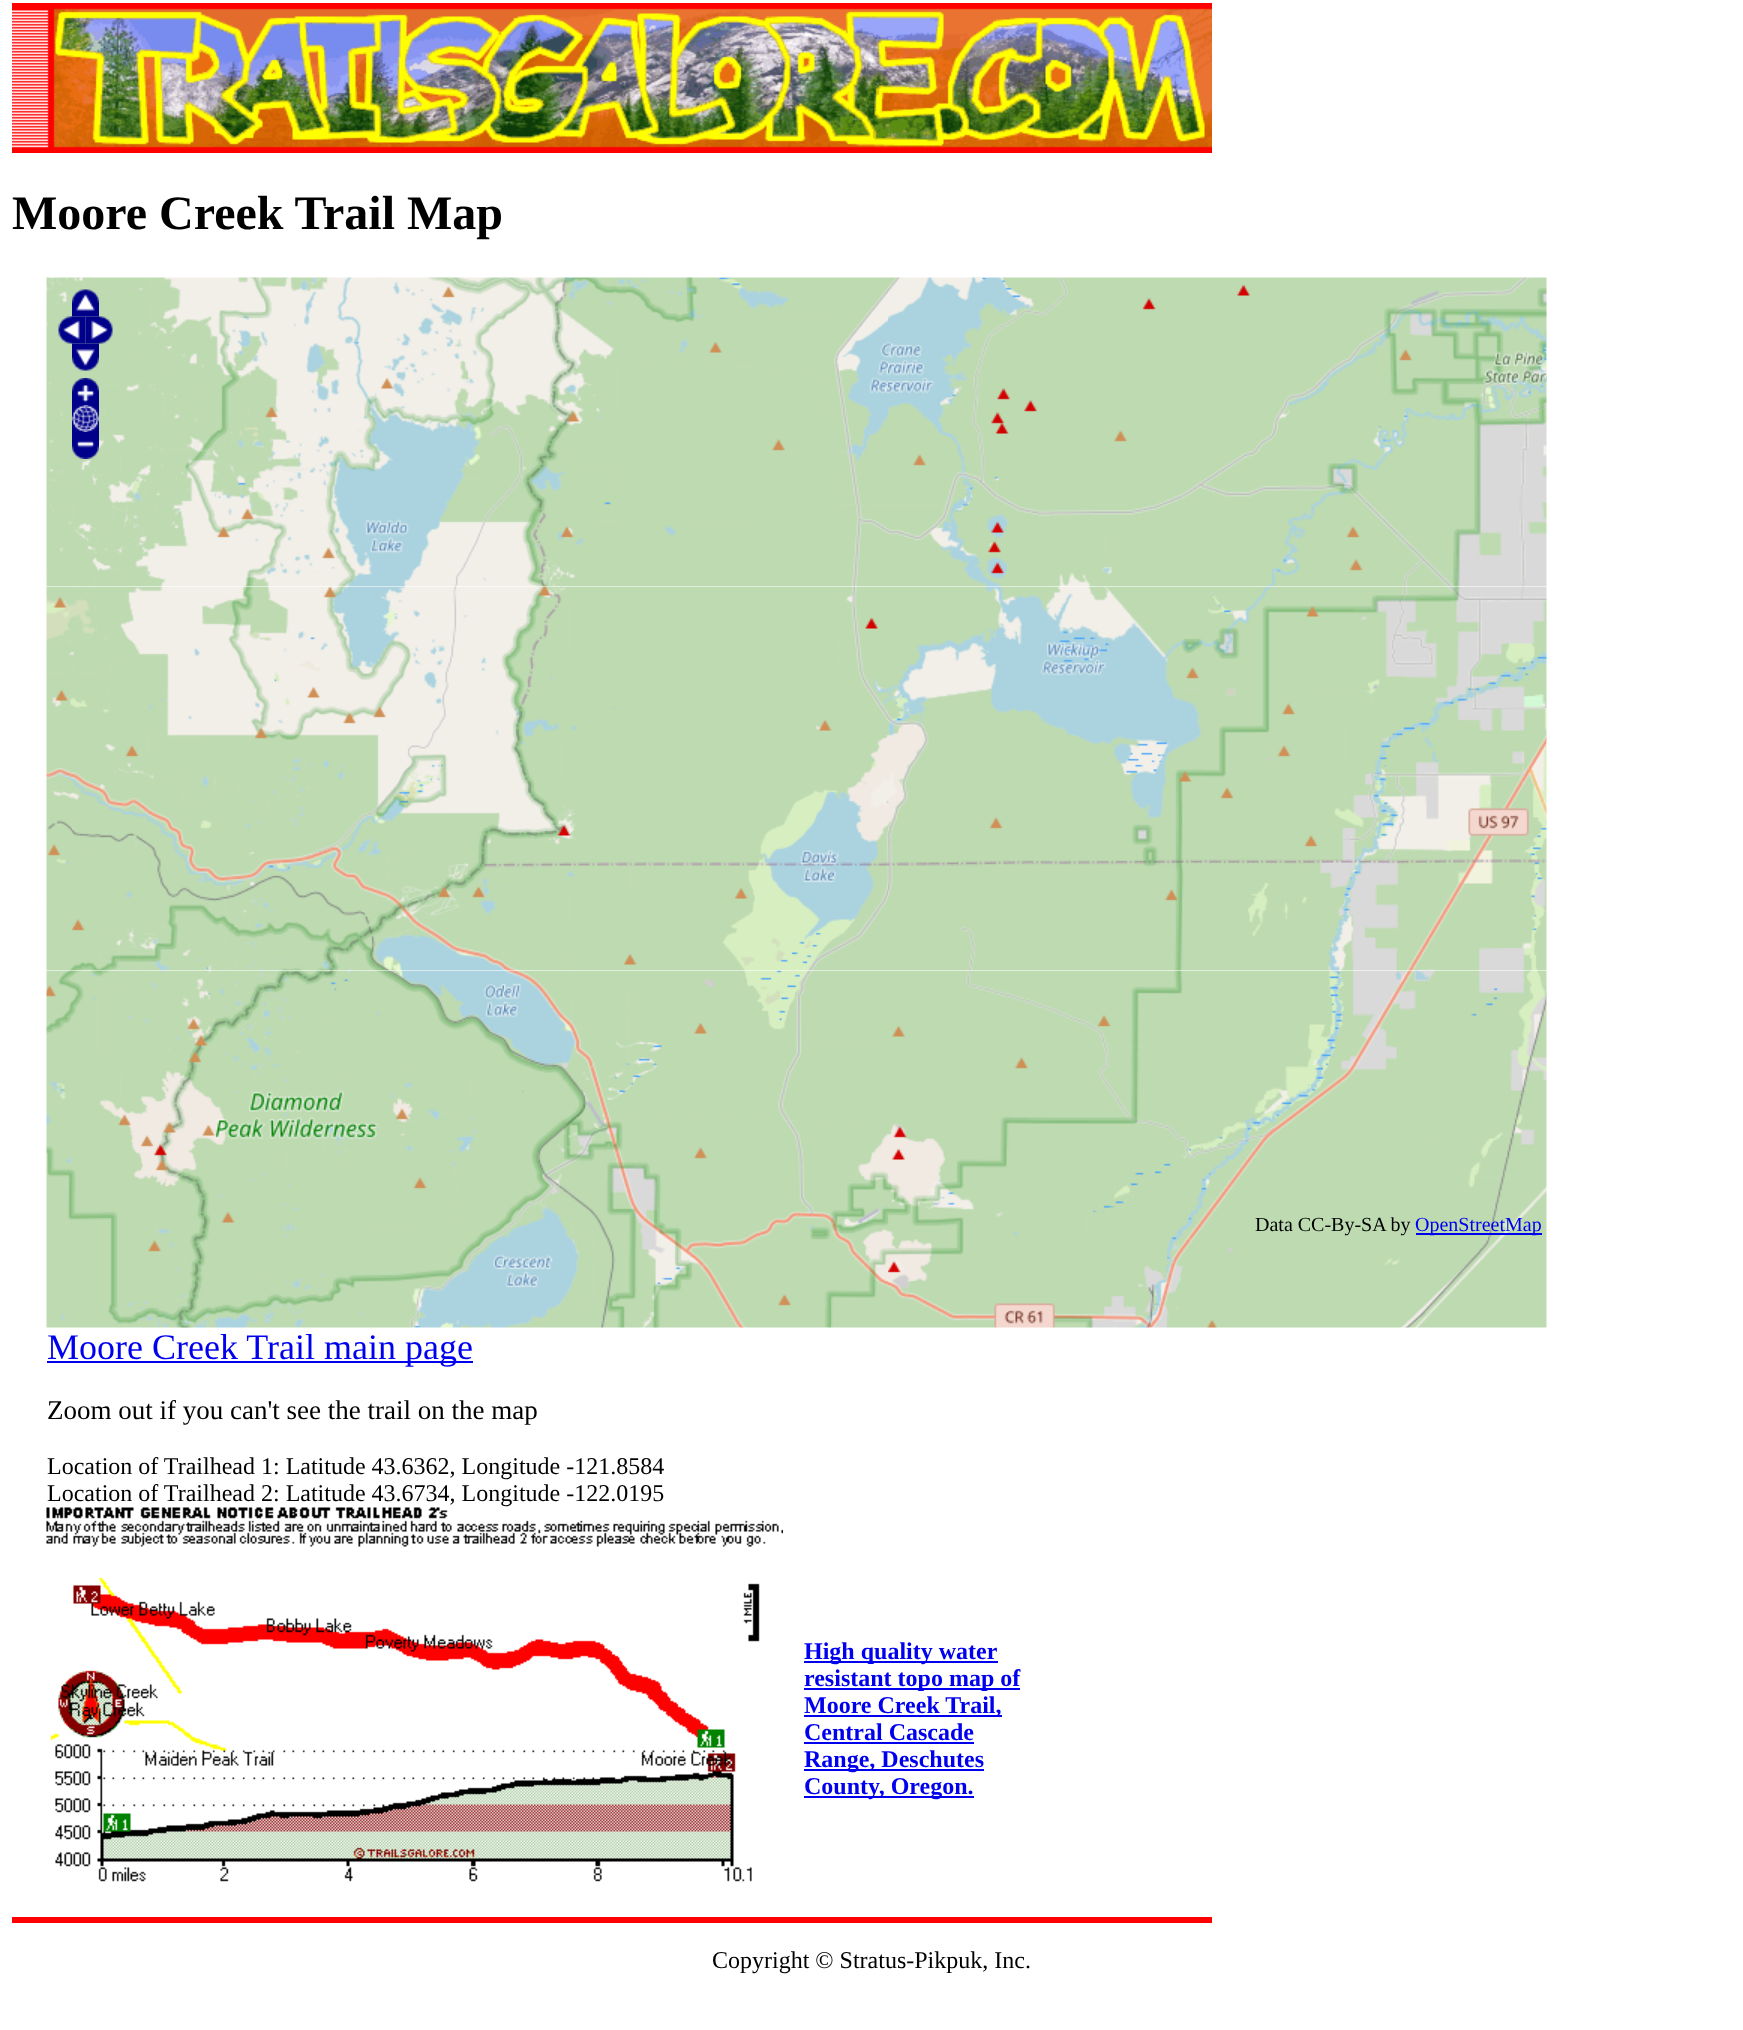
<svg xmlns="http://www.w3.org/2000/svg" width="1743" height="2030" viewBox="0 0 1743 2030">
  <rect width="100%" height="100%" fill="#ffffff"/>
  <image x="12" y="3" width="1200" height="150" href="img1.png"/>
  <text x="12" y="229" font-family="Liberation Serif" font-size="48" font-weight="bold" fill="#000000">Moore Creek Trail Map</text>
  <image x="46" y="586" width="74" height="385" href="img7.png"/>
  <image x="46" y="277" width="74" height="310" href="img2.png"/>
  <image x="120" y="970" width="384" height="358" href="img13.png"/>
  <image x="120" y="586" width="384" height="385" href="img8.png"/>
  <image x="120" y="277" width="384" height="310" href="img3.png"/>
  <image x="504" y="970" width="384" height="358" href="img14.png"/>
  <image x="504" y="586" width="384" height="385" href="img9.png"/>
  <image x="504" y="277" width="384" height="310" href="img4.png"/>
  <image x="888" y="970" width="384" height="358" href="img15.png"/>
  <image x="888" y="586" width="384" height="385" href="img10.png"/>
  <image x="888" y="277" width="384" height="310" href="img5.png"/>
  <image x="1272" y="970" width="275" height="358" href="img16.png"/>
  <image x="1272" y="586" width="275" height="385" href="img11.png"/>
  <image x="1272" y="277" width="275" height="310" href="img6.png"/>
  <image x="46" y="970" width="74" height="358" href="img12.png"/>
  <image x="72" y="289" width="27" height="28" href="img17.png"/>
  <image x="58" y="316" width="28" height="28" href="img18.png"/>
  <image x="85" y="316" width="28" height="28" href="img19.png"/>
  <image x="72" y="343" width="27" height="28" href="img20.png"/>
  <image x="72" y="378" width="27" height="27" href="img21.png"/>
  <image x="72" y="405" width="27" height="27" href="img22.png"/>
  <image x="72" y="432" width="27" height="27" href="img23.png"/>
  <text x="1255" y="1231" font-family="Liberation Serif" font-size="20" fill="#000000">Data CC-By-SA by</text>
  <rect x="1416" y="1233" width="126" height="2" fill="#0000ee"/>
  <text x="1415" y="1231" font-family="Liberation Serif" font-size="20" fill="#0000ee">OpenStreetMap</text>
  <rect x="47" y="1361" width="426" height="2" fill="#0000ee"/>
  <text x="47" y="1359" font-family="Liberation Serif" font-size="36" fill="#0000ee">Moore Creek Trail main page</text>
  <text x="47" y="1419" font-family="Liberation Serif" font-size="27" fill="#000000">Zoom out if you can't see the trail on the map</text>
  <text x="47" y="1474" font-family="Liberation Serif" font-size="24" fill="#000000">Location of Trailhead 1: Latitude 43.6362, Longitude -121.8584</text>
  <text x="47" y="1501" font-family="Liberation Serif" font-size="24" fill="#000000">Location of Trailhead 2: Latitude 43.6734, Longitude -122.0195</text>
  <image x="46" y="1507" width="737" height="40" href="img24.png"/>
  <image x="51" y="1578" width="709" height="304" href="img25.png"/>
  <rect x="804" y="1661" width="194" height="2" fill="#0000ee"/>
  <text x="804" y="1659" font-family="Liberation Serif" font-size="24" font-weight="bold" fill="#0000ee">High quality water</text>
  <rect x="804" y="1688" width="216" height="2" fill="#0000ee"/>
  <text x="804" y="1686" font-family="Liberation Serif" font-size="24" font-weight="bold" fill="#0000ee">resistant topo map of</text>
  <rect x="804" y="1715" width="198" height="2" fill="#0000ee"/>
  <text x="804" y="1713" font-family="Liberation Serif" font-size="24" font-weight="bold" fill="#0000ee">Moore Creek Trail,</text>
  <text x="804" y="1740" font-family="Liberation Serif" font-size="24" font-weight="bold" fill="#0000ee">Central Cascade</text>
  <rect x="804" y="1742" width="170" height="2" fill="#0000ee"/>
  <rect x="804" y="1769" width="180" height="2" fill="#0000ee"/>
  <text x="804" y="1767" font-family="Liberation Serif" font-size="24" font-weight="bold" fill="#0000ee">Range, Deschutes</text>
  <rect x="804" y="1796" width="170" height="2" fill="#0000ee"/>
  <text x="804" y="1794" font-family="Liberation Serif" font-size="24" font-weight="bold" fill="#0000ee">County, Oregon.</text>
  <rect x="12" y="1917" width="1200" height="6" fill="#ff0000"/>
  <text x="712" y="1968" font-family="Liberation Serif" font-size="24" fill="#000000">Copyright © Stratus-Pikpuk, Inc.</text>
</svg>
